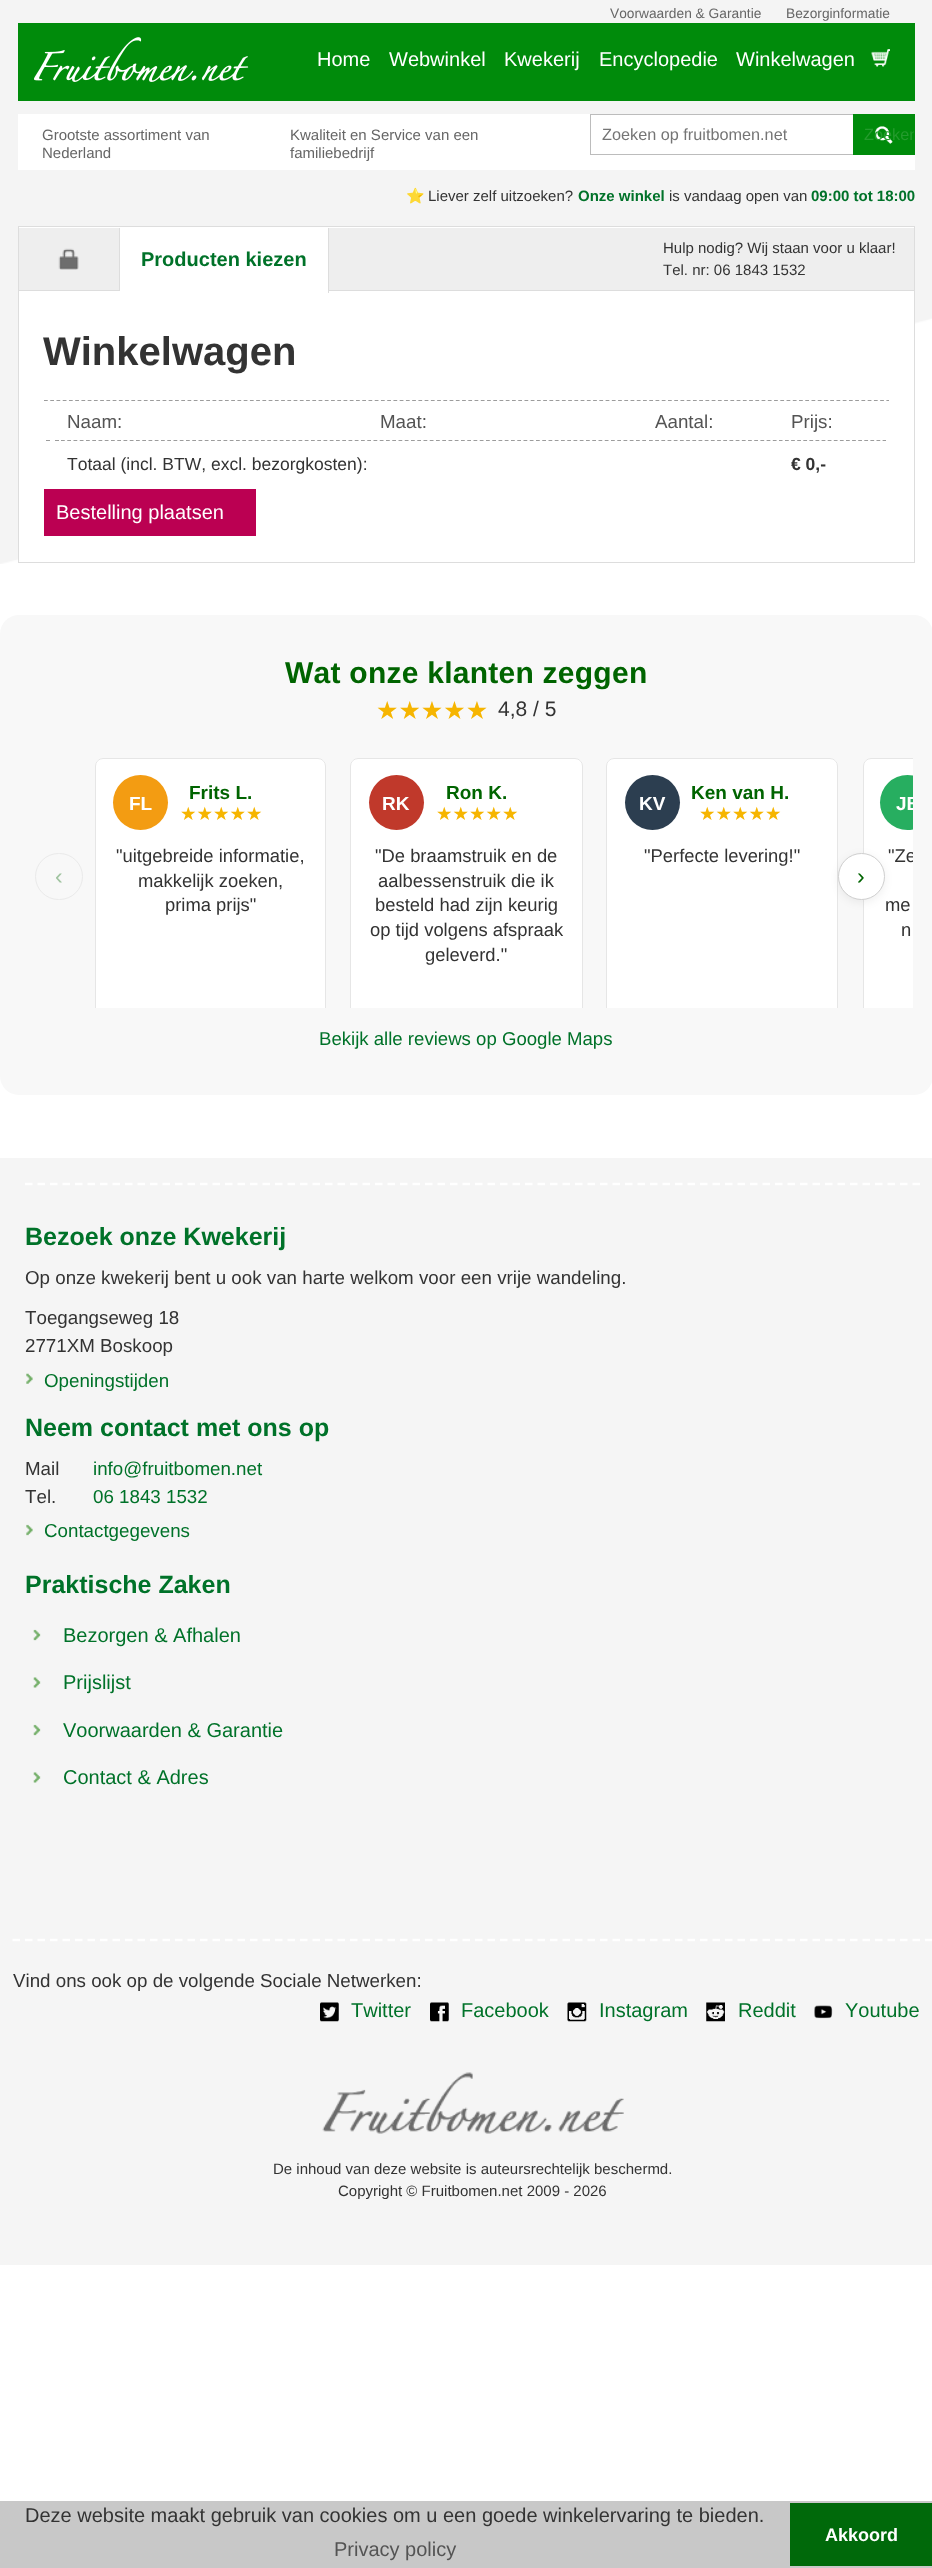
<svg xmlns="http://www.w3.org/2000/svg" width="932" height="2568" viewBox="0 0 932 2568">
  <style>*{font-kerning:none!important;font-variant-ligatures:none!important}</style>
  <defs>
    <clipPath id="clip1"><rect x="854" y="115" width="60" height="39"/></clipPath>
    <clipPath id="clip2"><rect x="20" y="745" width="893" height="263"/></clipPath>
    <filter id="blur1" x="-50%" y="-200%" width="200%" height="500%"><feGaussianBlur stdDeviation="4"/></filter>
  </defs>
  <rect width="100%" height="100%" fill="#ffffff"/>
  <image x="0" y="0" width="932" height="564" href="img1.png"/>
  <text x="610" y="18" font-family="Liberation Sans" font-size="13.75" fill="#666666">Voorwaarden &amp; Garantie</text>
  <text x="786" y="18" font-family="Liberation Sans" font-size="13.75" fill="#666666">Bezorginformatie</text>
  <rect x="18" y="23" width="897" height="78" fill="#008b0b"/>
  <image x="34" y="37" width="215" height="45" href="img2.png"/>
  <text x="317" y="66" font-family="Liberation Sans" font-size="20" fill="#ffffff">Home</text>
  <text x="389" y="66" font-family="Liberation Sans" font-size="20" fill="#ffffff">Webwinkel</text>
  <text x="504" y="66" font-family="Liberation Sans" font-size="20" fill="#ffffff">Kwekerij</text>
  <text x="599" y="66" font-family="Liberation Sans" font-size="20" fill="#ffffff">Encyclopedie</text>
  <image x="871" y="49" width="19" height="18" href="img3.png"/>
  <text x="736" y="66" font-family="Liberation Sans" font-size="20" fill="#ffffff">Winkelwagen</text>
  <rect x="18" y="114" width="897" height="56" fill="#ffffff"/>
  <text x="42" y="140" font-family="Liberation Sans" font-size="15" fill="#666666">Grootste assortiment van</text>
  <text x="42" y="158" font-family="Liberation Sans" font-size="15" fill="#666666">Nederland</text>
  <text x="290" y="140" font-family="Liberation Sans" font-size="15" fill="#666666">Kwaliteit en Service van een</text>
  <text x="290" y="158" font-family="Liberation Sans" font-size="15" fill="#666666">familiebedrijf</text>
  <rect x="590" y="114" width="263" height="1" fill="#bcbcbc"/>
  <rect x="590" y="154" width="263" height="1" fill="#bcbcbc"/>
  <rect x="590" y="114" width="1" height="41" fill="#bcbcbc"/>
  <text x="602" y="140" font-family="Liberation Sans" font-size="16.25" fill="#757575">Zoeken op fruitbomen.net</text>
  <rect x="853" y="114" width="62" height="41" fill="#008b0b"/>
  <image x="875" y="126" width="18" height="18" href="img4.png"/>
  <g clip-path="url(#clip1)">
    <text x="864" y="140" font-family="Liberation Sans" font-size="16.25" fill="#249b2d">Zoeken</text>
  </g>
  <text x="406" y="201" font-family="Noto Color Emoji" font-size="15" fill="#333333">⭐</text>
  <text x="428" y="201" font-family="Liberation Sans" font-size="15" fill="#333333">Liever zelf uitzoeken?</text>
  <text x="578" y="201" font-family="Liberation Sans" font-size="15" font-weight="bold" fill="#007229">Onze winkel</text>
  <text x="669" y="201" font-family="Liberation Sans" font-size="15" fill="#333333">is vandaag open van</text>
  <text x="811" y="201" font-family="Liberation Sans" font-size="15" font-weight="bold" fill="#007229">09:00 tot 18:00</text>
  <rect x="19" y="227" width="895" height="333" fill="#ffffff"/>
  <rect x="18.5" y="226.5" width="896" height="336" fill="none" stroke="#dddddd"/>
  <rect x="19" y="228" width="895" height="62" fill="#eeeeee"/>
  <rect x="19" y="290" width="895" height="1" fill="#dddddd"/>
  <image x="58" y="248" width="21" height="22" href="img5.png"/>
  <rect x="119" y="228" width="1" height="62" fill="#dddddd"/>
  <rect x="120" y="228" width="208" height="63" fill="#ffffff"/>
  <rect x="328" y="228" width="1" height="65" fill="#dddddd"/>
  <text x="141" y="266" font-family="Liberation Sans" font-size="20" font-weight="bold" fill="#007229">Producten kiezen</text>
  <text x="663" y="253" font-family="Liberation Sans" font-size="15" fill="#333333">Hulp nodig? Wij staan voor u klaar!</text>
  <text x="663" y="275" font-family="Liberation Sans" font-size="15" fill="#333333">Tel. nr: 06 1843 1532</text>
  <text x="43" y="365" font-family="Liberation Sans" font-size="40" font-weight="bold" fill="#333333">Winkelwagen</text>
  <path d="M44 400.5H889" fill="none" stroke="#9c9c9c" stroke-width="1.2" stroke-dasharray="3.75 2.49"/>
  <text x="67" y="428" font-family="Liberation Sans" font-size="18.75" fill="#545454">Naam:</text>
  <text x="380" y="428" font-family="Liberation Sans" font-size="18.75" fill="#545454">Maat:</text>
  <text x="655" y="428" font-family="Liberation Sans" font-size="18.75" fill="#545454">Aantal:</text>
  <text x="791" y="428" font-family="Liberation Sans" font-size="18.75" fill="#545454">Prijs:</text>
  <path d="M46 440.5H50M55 440.5H59" fill="none" stroke="#9c9c9c" stroke-width="1.2"/>
  <path d="M649 440.5H782.5" fill="none" stroke="#9c9c9c" stroke-width="1.2" stroke-dasharray="3.75 2.44"/>
  <path d="M61 440.5H646" fill="none" stroke="#9c9c9c" stroke-width="1.2" stroke-dasharray="3.75 2.5"/>
  <text x="67" y="470" font-family="Liberation Sans" font-size="17.5" fill="#333333">Totaal (incl. BTW, excl. bezorgkosten):</text>
  <path d="M785 440.5H886" fill="none" stroke="#9c9c9c" stroke-width="1.2" stroke-dasharray="3.75 2.35"/>
  <text x="791" y="470" font-family="Liberation Sans" font-size="17.5" font-weight="bold" fill="#333333">€ 0,-</text>
  <rect x="44" y="489" width="212" height="47" fill="#bb0052"/>
  <text x="56" y="519" font-family="Liberation Sans" font-size="20" fill="#ffffff">Bestelling plaatsen</text>
  <rect x="0" y="615" width="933" height="480" rx="19" fill="#f8f8f8"/>
  <text x="285" y="683" font-family="Liberation Sans" font-size="30" font-weight="bold" letter-spacing="0.25" fill="#006400">Wat onze klanten zeggen</text>
  <text x="376" y="719" font-family="DejaVu Sans" font-size="25" fill="#f6b500">★★★★★</text>
  <text x="498" y="716" font-family="Liberation Sans" font-size="21" fill="#333333">4,8 / 5</text>
  <rect x="35.5" y="853.5" width="47" height="46" rx="23" fill="none" stroke="#eaeaea"/>
  <text x="55" y="884" font-family="Liberation Sans" font-size="23" fill="#a1c4a1">‹</text>
  <path d="M103 758H318C322.5 758 326 761.5 326 766V1008H95V766C95 761.5 98.5 758 103 758Z" fill="#ffffff"/>
  <g clip-path="url(#clip2)">
    <rect x="95.5" y="758.5" width="230" height="272" rx="7.5" fill="none" stroke="#e6e6e6"/>
  </g>
  <circle cx="140.5" cy="802.5" r="27.5" fill="#f39c12"/>
  <text x="129" y="810" font-family="Liberation Sans" font-size="19" font-weight="bold" fill="#ffffff">FL</text>
  <text x="189" y="799" font-family="Liberation Sans" font-size="19" font-weight="bold" fill="#006400">Frits L.</text>
  <text x="180" y="820" font-family="DejaVu Sans" font-size="18.4" fill="#f6b500">★★★★★</text>
  <text x="116" y="862" font-family="Liberation Sans" font-size="18.4" fill="#333333">"uitgebreide informatie,</text>
  <text x="138" y="887" font-family="Liberation Sans" font-size="18.4" fill="#333333">makkelijk zoeken,</text>
  <text x="165" y="911" font-family="Liberation Sans" font-size="18.4" fill="#333333">prima prijs"</text>
  <path d="M358 758H575C579.5 758 583 761.5 583 766V1008H350V766C350 761.5 353.5 758 358 758Z" fill="#ffffff"/>
  <g clip-path="url(#clip2)">
    <rect x="350.5" y="758.5" width="232" height="272" rx="7.5" fill="none" stroke="#e6e6e6"/>
  </g>
  <circle cx="396.5" cy="802.5" r="27.5" fill="#c0392b"/>
  <text x="382" y="810" font-family="Liberation Sans" font-size="19" font-weight="bold" fill="#ffffff">RK</text>
  <text x="446" y="799" font-family="Liberation Sans" font-size="19" font-weight="bold" fill="#006400">Ron K.</text>
  <text x="436" y="820" font-family="DejaVu Sans" font-size="18.4" fill="#f6b500">★★★★★</text>
  <text x="375" y="862" font-family="Liberation Sans" font-size="18.4" fill="#333333">"De braamstruik en de</text>
  <text x="378" y="887" font-family="Liberation Sans" font-size="18.4" fill="#333333">aalbessenstruik die ik</text>
  <text x="375" y="911" font-family="Liberation Sans" font-size="18.4" fill="#333333">besteld had zijn keurig</text>
  <text x="370" y="936" font-family="Liberation Sans" font-size="18.4" fill="#333333">op tijd volgens afspraak</text>
  <text x="425" y="961" font-family="Liberation Sans" font-size="18.4" fill="#333333">geleverd."</text>
  <path d="M614 758H830C834.5 758 838 761.5 838 766V1008H606V766C606 761.5 609.5 758 614 758Z" fill="#ffffff"/>
  <g clip-path="url(#clip2)">
    <rect x="606.5" y="758.5" width="231" height="272" rx="7.5" fill="none" stroke="#e6e6e6"/>
  </g>
  <circle cx="652.5" cy="802.5" r="27.5" fill="#2c3e50"/>
  <text x="639" y="810" font-family="Liberation Sans" font-size="19" font-weight="bold" fill="#ffffff">KV</text>
  <text x="691" y="799" font-family="Liberation Sans" font-size="19" font-weight="bold" fill="#006400">Ken van H.</text>
  <text x="699" y="820" font-family="DejaVu Sans" font-size="18.4" fill="#f6b500">★★★★★</text>
  <text x="644" y="862" font-family="Liberation Sans" font-size="18.4" fill="#333333">"Perfecte levering!"</text>
  <path d="M871 758H913V1008H863V766C863 761.5 866.5 758 871 758Z" fill="#ffffff"/>
  <g clip-path="url(#clip2)">
    <rect x="863.5" y="758.5" width="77" height="272" rx="7.5" fill="none" stroke="#e6e6e6"/>
    <circle cx="907.5" cy="802.5" r="27.5" fill="#27ae60"/>
    <text x="896" y="810" font-family="Liberation Sans" font-size="19" font-weight="bold" fill="#ffffff">JB</text>
    <text x="888" y="862" font-family="Liberation Sans" font-size="18.4" fill="#333333">"Ze</text>
  </g>
  <text x="885" y="911" font-family="Liberation Sans" font-size="18.4" fill="#333333">me</text>
  <text x="901" y="936" font-family="Liberation Sans" font-size="18.4" fill="#333333">n</text>
  <rect x="838" y="855" width="47" height="48" rx="23.5" fill="#000000" fill-opacity="0.06" filter="url(#blur1)"/>
  <circle cx="861.5" cy="876.5" r="23" fill="#ffffff" stroke="#cfcfcf"/>
  <text x="857" y="884" font-family="Liberation Sans" font-size="23" fill="#006400">›</text>
  <text x="319" y="1045" font-family="Liberation Sans" font-size="18.6" fill="#007229">Bekijk alle reviews op Google Maps</text>
  <rect x="0" y="1158" width="932" height="1107" fill="#f5f5f5"/>
  <path d="M25 1184H920" fill="none" stroke="#ffffff" stroke-width="2.5" stroke-dasharray="7.5 5"/>
  <text x="25" y="1245" font-family="Liberation Sans" font-size="25" font-weight="bold" fill="#007229">Bezoek onze Kwekerij</text>
  <text x="25" y="1284" font-family="Liberation Sans" font-size="18.75" fill="#333333">Op onze kwekerij bent u ook van harte welkom voor een vrije wandeling.</text>
  <text x="25" y="1324" font-family="Liberation Sans" font-size="18.75" fill="#333333">Toegangseweg 18</text>
  <text x="25" y="1352" font-family="Liberation Sans" font-size="18.75" fill="#333333">2771XM Boskoop</text>
  <image x="26" y="1373" width="7" height="11" href="img6.png"/>
  <text x="44" y="1387" font-family="Liberation Sans" font-size="18.75" fill="#007229">Openingstijden</text>
  <text x="25" y="1436" font-family="Liberation Sans" font-size="25" font-weight="bold" fill="#007229">Neem contact met ons op</text>
  <text x="25" y="1475" font-family="Liberation Sans" font-size="18.75" fill="#333333">Mail</text>
  <text x="93" y="1475" font-family="Liberation Sans" font-size="18.75" fill="#007229">info@fruitbomen.net</text>
  <text x="25" y="1503" font-family="Liberation Sans" font-size="18.75" fill="#333333">Tel.</text>
  <text x="93" y="1503" font-family="Liberation Sans" font-size="18.75" fill="#007229">06 1843 1532</text>
  <image x="26" y="1524" width="7" height="12" href="img7.png"/>
  <text x="44" y="1537" font-family="Liberation Sans" font-size="18.75" fill="#007229">Contactgegevens</text>
  <text x="25" y="1593" font-family="Liberation Sans" font-size="25" font-weight="bold" fill="#007229">Praktische Zaken</text>
  <image x="33" y="1629" width="8" height="12" href="img8.png"/>
  <text x="63" y="1642" font-family="Liberation Sans" font-size="20" fill="#007229">Bezorgen &amp; Afhalen</text>
  <image x="33" y="1677" width="8" height="11" href="img9.png"/>
  <text x="63" y="1689" font-family="Liberation Sans" font-size="20" fill="#007229">Prijslijst</text>
  <image x="33" y="1724" width="8" height="12" href="img8.png"/>
  <text x="63" y="1737" font-family="Liberation Sans" font-size="20" fill="#007229">Voorwaarden &amp; Garantie</text>
  <image x="33" y="1772" width="8" height="11" href="img9.png"/>
  <text x="63" y="1784" font-family="Liberation Sans" font-size="20" fill="#007229">Contact &amp; Adres</text>
  <path d="M12.5 1940H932.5" fill="none" stroke="#ffffff" stroke-width="2.5" stroke-dasharray="7.5 5"/>
  <text x="13" y="1987" font-family="Liberation Sans" font-size="18.75" fill="#333333">Vind ons ook op de volgende Sociale Netwerken:</text>
  <image x="320" y="2002" width="19" height="20" href="img10.png"/>
  <text x="351" y="2017" font-family="Liberation Sans" font-size="20" fill="#007229">Twitter</text>
  <image x="430" y="2002" width="19" height="20" href="img11.png"/>
  <text x="461" y="2017" font-family="Liberation Sans" font-size="20" fill="#007229">Facebook</text>
  <image x="567" y="2002" width="20" height="20" href="img12.png"/>
  <text x="599" y="2017" font-family="Liberation Sans" font-size="20" fill="#007229">Instagram</text>
  <image x="706" y="2002" width="19" height="20" href="img13.png"/>
  <text x="738" y="2017" font-family="Liberation Sans" font-size="20" fill="#007229">Reddit</text>
  <image x="814" y="2005" width="19" height="14" href="img14.png"/>
  <text x="845" y="2017" font-family="Liberation Sans" font-size="20" fill="#007229">Youtube</text>
  <image x="322" y="2072" width="302" height="62" href="img15.png"/>
  <text x="273" y="2174" font-family="Liberation Sans" font-size="15" fill="#333333">De inhoud van deze website is auteursrechtelijk beschermd.</text>
  <text x="338" y="2196" font-family="Liberation Sans" font-size="15" fill="#333333">Copyright © Fruitbomen.net 2009 - 2026</text>
  <rect x="0" y="2501" width="932" height="67" fill="#c8c8c8"/>
  <text x="25" y="2522" font-family="Liberation Sans" font-size="20" fill="#333333">Deze website maakt gebruik van cookies om u een goede winkelervaring te bieden.</text>
  <text x="334" y="2556" font-family="Liberation Sans" font-size="20" fill="#545454">Privacy policy</text>
  <rect x="790" y="2503" width="142" height="63" fill="#00690a"/>
  <text x="825" y="2541" font-family="Liberation Sans" font-size="18" font-weight="bold" fill="#ffffff">Akkoord</text>
</svg>
